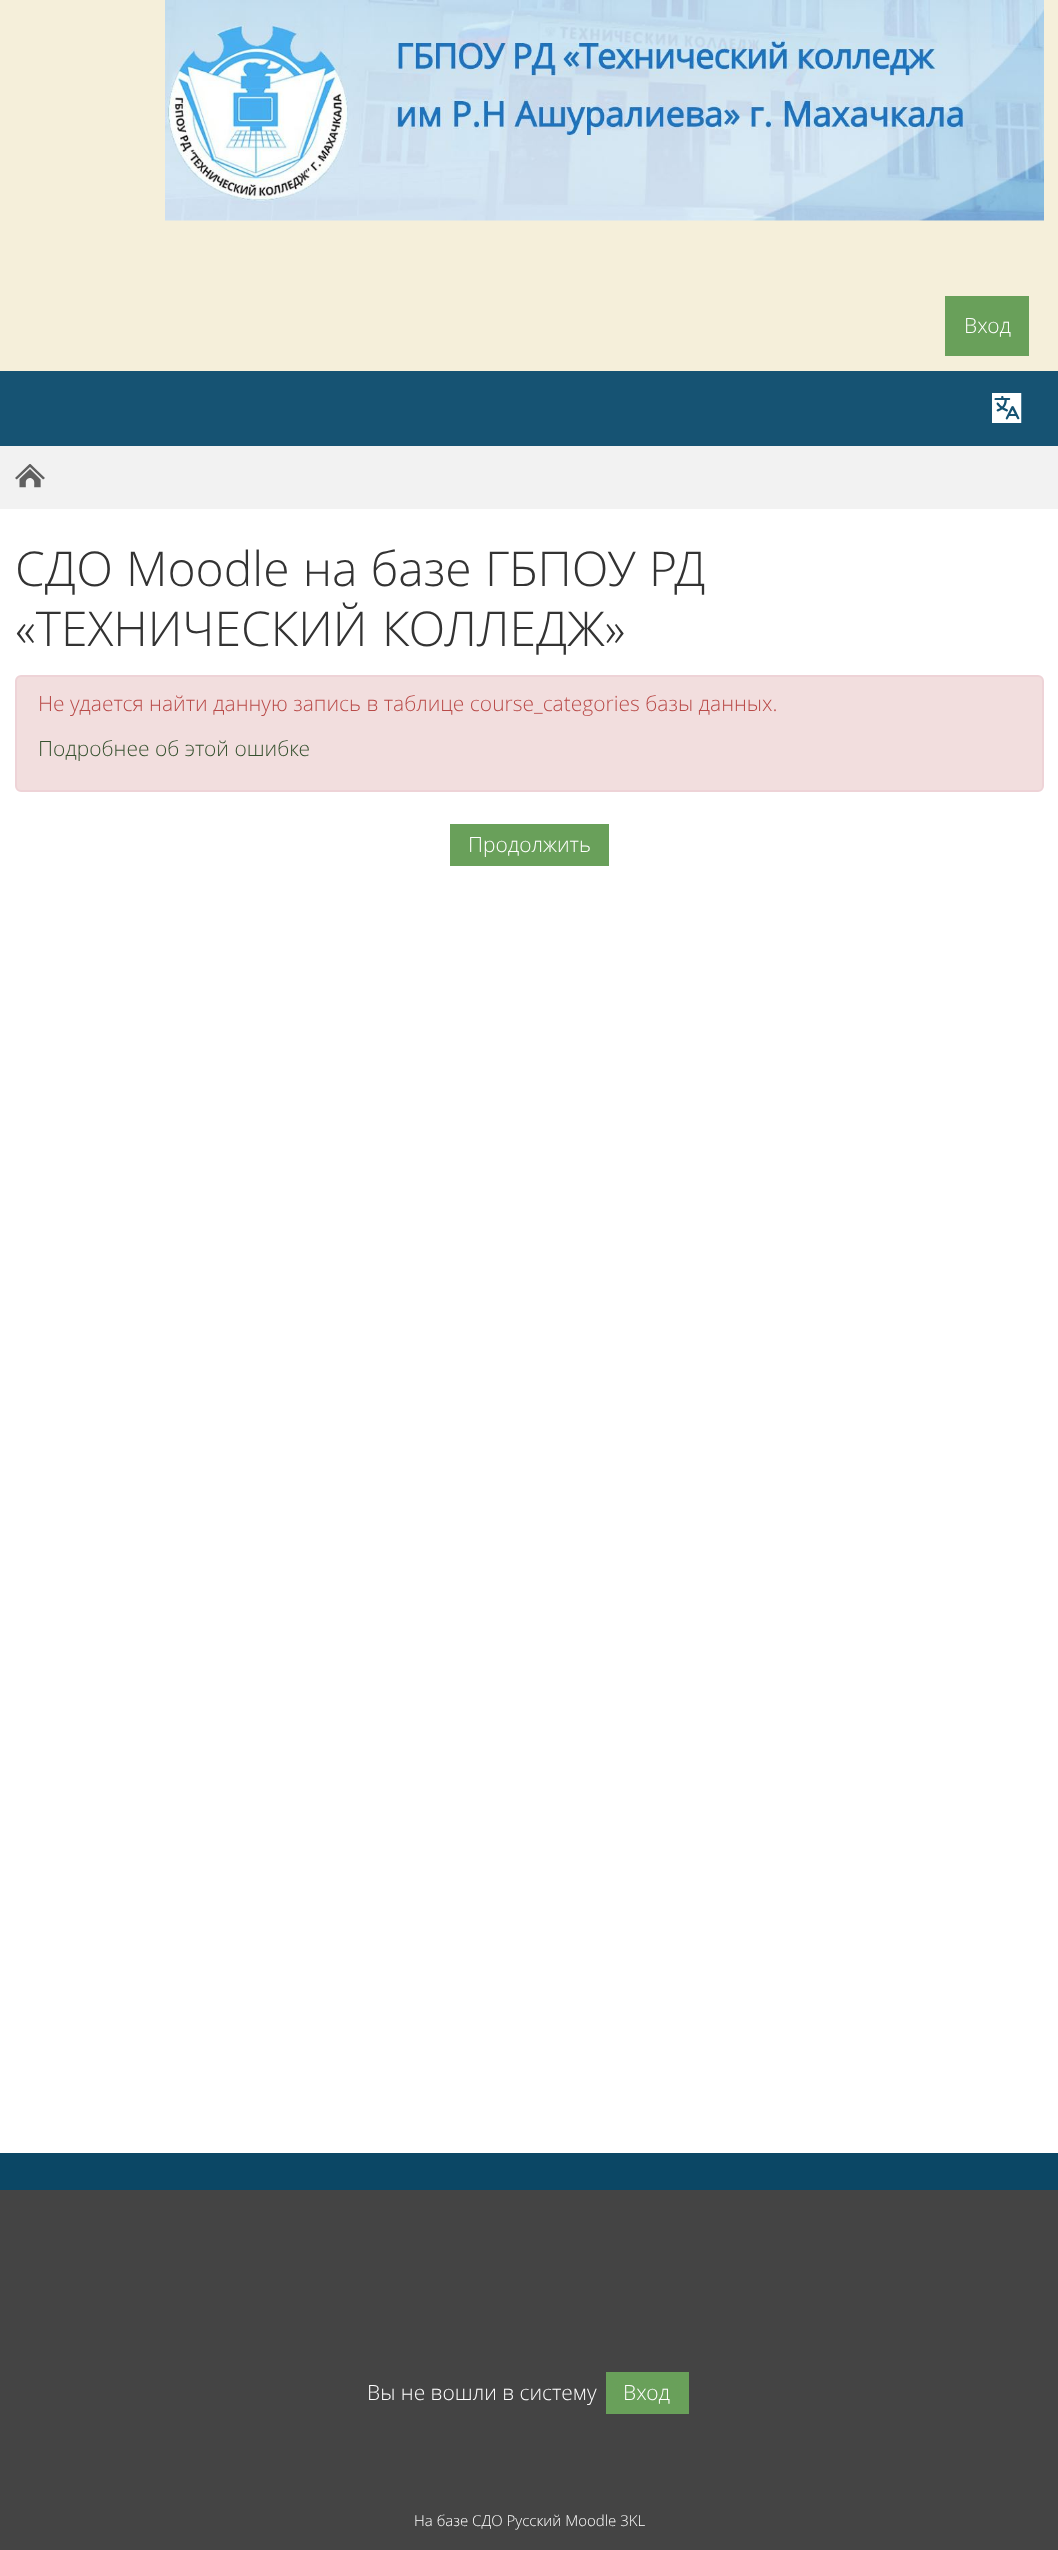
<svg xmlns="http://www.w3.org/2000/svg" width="1058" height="2550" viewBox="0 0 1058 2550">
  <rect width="100%" height="100%" fill="#ffffff"/>
  <rect x="0" y="0" width="1058" height="371" fill="#f5efda"/>
  <image x="165" y="0" width="879" height="221" href="img1.png"/>
  <rect x="945" y="296" width="84" height="60" fill="#69a05a"/>
  <text x="964" y="333" font-family="Open Sans" font-size="21" font-weight="300" fill="#ffffff">Вход</text>
  <rect x="0" y="371" width="1058" height="75" fill="#165373"/>
  <image x="992" y="393" width="30" height="30" href="img2.png"/>
  <rect x="0" y="446" width="1058" height="63" fill="#f2f2f2"/>
  <image x="15" y="464" width="30" height="24" href="img3.png"/>
  <text x="15" y="586" word-spacing="0.75" font-family="Open Sans" font-size="48" font-weight="300" fill="#333333">СДО Moodle на базе ГБПОУ РД</text>
  <text x="15" y="646" word-spacing="2" font-family="Open Sans" font-size="48" font-weight="300" fill="#333333">«ТЕХНИЧЕСКИЙ КОЛЛЕДЖ»</text>
  <rect x="16" y="676" width="1027" height="115" rx="5" fill="#f2dede" stroke="#eed3d7" stroke-width="2"/>
  <text x="38" y="711" font-family="Open Sans" font-size="21" font-weight="300" fill="#b94a48">Не удается найти данную запись в таблице course_categories базы данных.</text>
  <text x="38" y="756" font-family="Open Sans" font-size="21" font-weight="300" fill="#36512f">Подробнее об этой ошибке</text>
  <rect x="450" y="824" width="159" height="42" fill="#69a05a"/>
  <text x="468" y="852" font-family="Open Sans" font-size="21" font-weight="300" fill="#ffffff">Продолжить</text>
  <rect x="0" y="2153" width="1058" height="37" fill="#0b4765"/>
  <rect x="0" y="2190" width="1058" height="360" fill="#444444"/>
  <text x="367" y="2400" font-family="Open Sans" font-size="21" font-weight="300" fill="#ffffff">Вы не вошли в систему</text>
  <rect x="606" y="2372" width="83" height="42" fill="#69a05a"/>
  <text x="623" y="2400" font-family="Open Sans" font-size="21" font-weight="300" fill="#ffffff">Вход</text>
  <text x="414" y="2526" font-family="Open Sans" font-size="15" font-weight="300" fill="#ffffff">На базе СДО Русский Moodle 3KL</text>
</svg>
